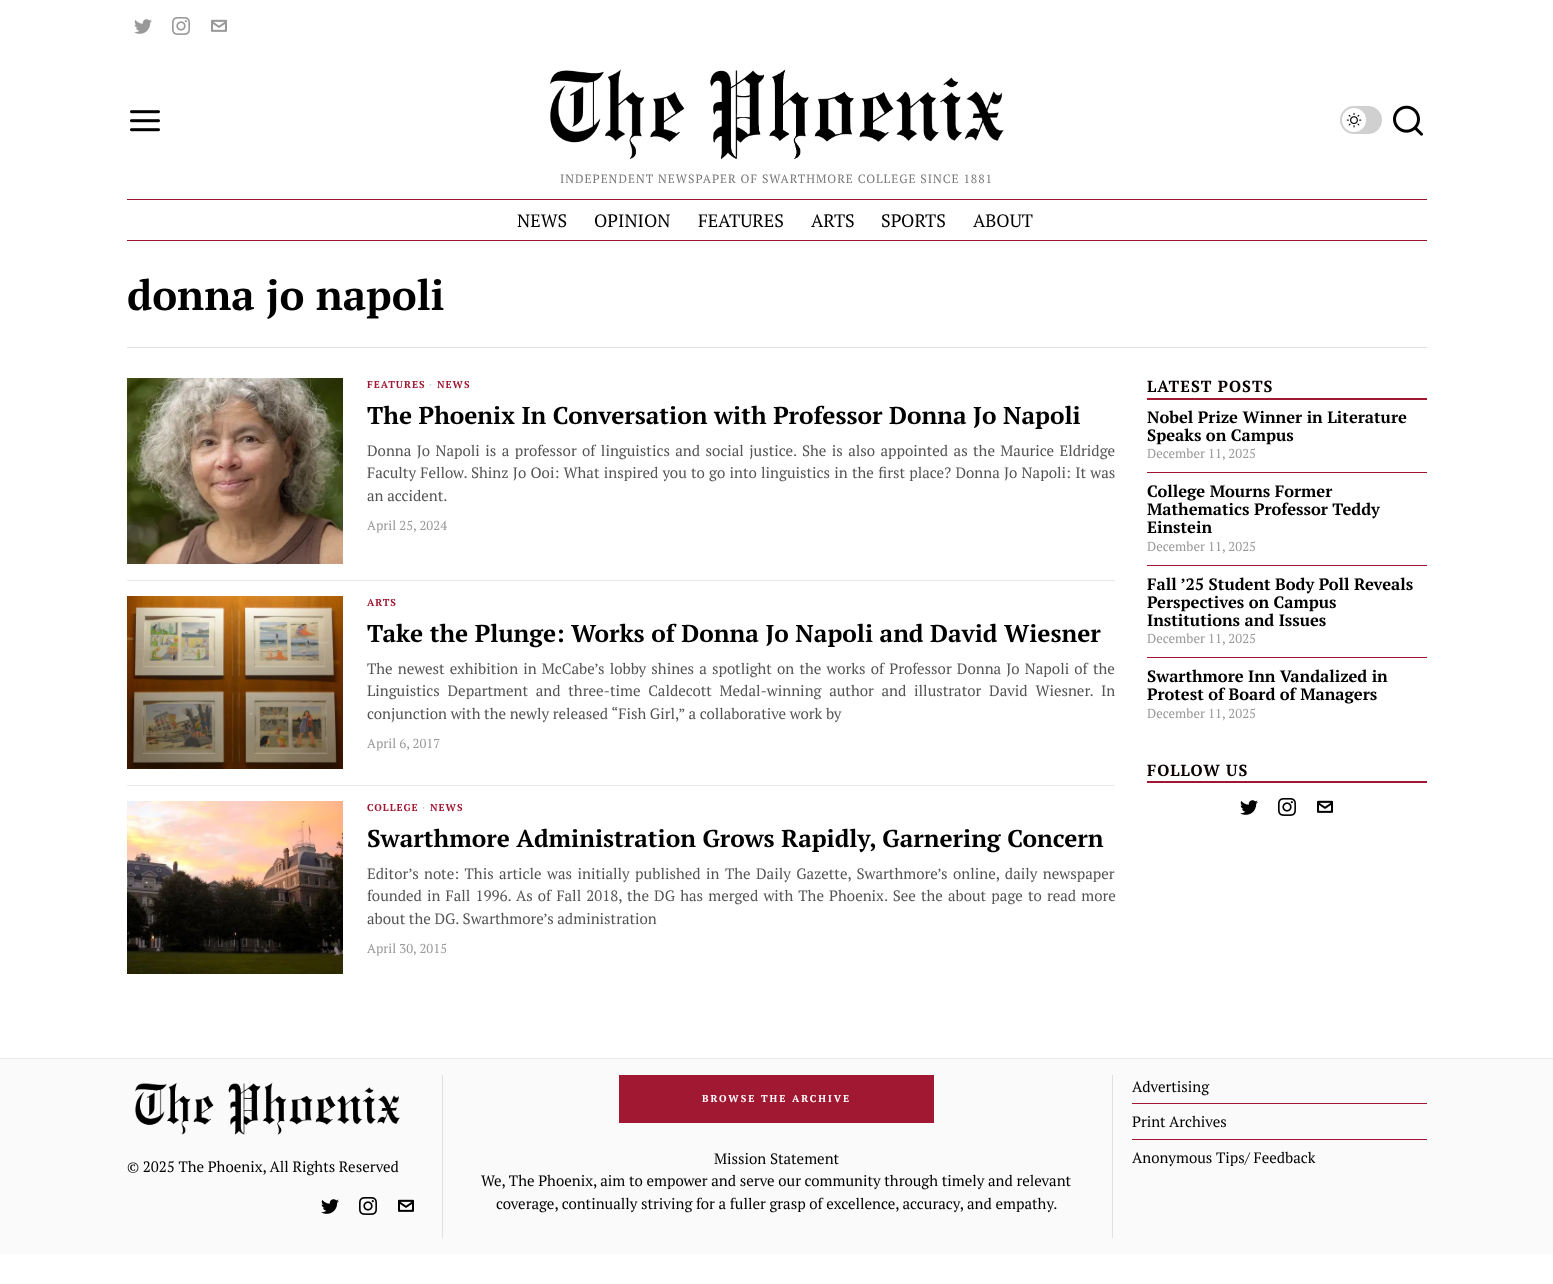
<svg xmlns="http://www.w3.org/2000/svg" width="1553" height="1284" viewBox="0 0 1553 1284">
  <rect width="100%" height="100%" fill="#ffffff"/>
  <image x="134" y="19" width="18" height="15" href="img1.png"/>
  <image x="172" y="17" width="18" height="18" href="img2.png"/>
  <image x="211" y="19" width="16" height="13" href="img3.png"/>
  <image x="130" y="110" width="30" height="22" href="img4.png"/>
  <rect x="1341" y="107" width="40" height="26" rx="13" fill="#d0d0d0" stroke="#d0d0d0" stroke-width="2"/>
  <circle cx="1354" cy="120" r="12" fill="#ffffff"/>
  <image x="1346" y="112" width="16" height="16" href="img5.png"/>
  <image x="1393" y="105" width="30" height="31" href="img6.png"/>
  <image x="550" y="69" width="454" height="91" href="img7.png"/>
  <text x="560" y="183" font-family="PT Serif" font-size="12" letter-spacing="1" fill="#797979">INDEPENDENT NEWSPAPER OF SWARTHMORE COLLEGE SINCE 1881</text>
  <rect x="127" y="199" width="1300" height="1" fill="#a01733"/>
  <rect x="127" y="240" width="1300" height="1" fill="#a01733"/>
  <text x="517" y="227" font-family="PT Serif" font-size="18" fill="#000000">NEWS</text>
  <text x="594" y="227" font-family="PT Serif" font-size="18" fill="#000000">OPINION</text>
  <text x="698" y="227" font-family="PT Serif" font-size="18" fill="#000000">FEATURES</text>
  <text x="811" y="227" font-family="PT Serif" font-size="18" fill="#000000">ARTS</text>
  <text x="881" y="227" font-family="PT Serif" font-size="18" fill="#000000">SPORTS</text>
  <text x="973" y="227" font-family="PT Serif" font-size="18" fill="#000000">ABOUT</text>
  <rect x="127" y="347" width="1300" height="1" fill="#e0e0e0"/>
  <text x="127" y="310" font-family="PT Serif" font-size="42" font-weight="bold" fill="#000000">donna jo napoli</text>
  <image x="127" y="378" width="216" height="186" href="img8.png"/>
  <text x="367" y="388" font-family="PT Serif" font-size="10" font-weight="bold" letter-spacing="1" fill="#a11833">FEATURES</text>
  <text x="429" y="388" font-family="PT Serif" font-size="10" font-weight="bold" letter-spacing="1" fill="#cccccc">·</text>
  <text x="437" y="388" font-family="PT Serif" font-size="10" font-weight="bold" letter-spacing="1" fill="#a11833">NEWS</text>
  <text x="367" y="424" font-family="PT Serif" font-size="24.4" font-weight="bold" fill="#000000">The Phoenix In Conversation with Professor Donna Jo Napoli</text>
  <text x="367" y="456" word-spacing="1.75" font-family="PT Serif" font-size="15" fill="#555555">Donna Jo Napoli is a professor of linguistics and social justice. She is also appointed as the Maurice Eldridge</text>
  <text x="367" y="478" word-spacing="0.6" font-family="PT Serif" font-size="15" fill="#555555">Faculty Fellow.</text>
  <text x="471" y="478" word-spacing="0.6" font-family="PT Serif" font-size="15" fill="#555555">Shinz Jo Ooi: What inspired you to go into linguistics in the first place? Donna Jo Napoli: It was</text>
  <text x="367" y="501" font-family="PT Serif" font-size="15" fill="#555555">an accident.</text>
  <text x="367" y="530" font-family="PT Serif" font-size="13" fill="#999999">April 25, 2024</text>
  <rect x="127" y="580" width="988" height="1" fill="#eaeaea"/>
  <image x="127" y="596" width="216" height="173" href="img9.png"/>
  <text x="367" y="606" font-family="PT Serif" font-size="10" font-weight="bold" letter-spacing="1" fill="#a11833">ARTS</text>
  <text x="367" y="642" font-family="PT Serif" font-size="24.4" font-weight="bold" fill="#000000">Take the Plunge: Works of Donna Jo Napoli and David Wiesner</text>
  <text x="367" y="674" word-spacing="1.5" font-family="PT Serif" font-size="15" fill="#555555">The newest exhibition in McCabe’s lobby shines a spotlight on the works of Professor Donna Jo Napoli of the</text>
  <text x="367" y="696" word-spacing="4.1" font-family="PT Serif" font-size="15" fill="#555555">Linguistics Department and three-time Caldecott Medal-winning author and illustrator David Wiesner. In</text>
  <text x="367" y="719" font-family="PT Serif" font-size="15" fill="#555555">conjunction with the newly released “Fish Girl,” a collaborative work by</text>
  <text x="367" y="748" font-family="PT Serif" font-size="13" fill="#999999">April 6, 2017</text>
  <rect x="127" y="785" width="988" height="1" fill="#eaeaea"/>
  <image x="127" y="801" width="216" height="173" href="img10.png"/>
  <text x="367" y="811" font-family="PT Serif" font-size="10" font-weight="bold" letter-spacing="1" fill="#a11833">COLLEGE</text>
  <text x="422" y="811" font-family="PT Serif" font-size="10" font-weight="bold" letter-spacing="1" fill="#cccccc">·</text>
  <text x="430" y="811" font-family="PT Serif" font-size="10" font-weight="bold" letter-spacing="1" fill="#a11833">NEWS</text>
  <text x="367" y="847" font-family="PT Serif" font-size="24.4" font-weight="bold" fill="#000000">Swarthmore Administration Grows Rapidly, Garnering Concern</text>
  <text x="367" y="879" word-spacing="1.8" font-family="PT Serif" font-size="15" fill="#555555">Editor’s note: This article was initially published in The Daily Gazette, Swarthmore’s online, daily newspaper</text>
  <text x="367" y="901" word-spacing="1.5" font-family="PT Serif" font-size="15" fill="#555555">founded in Fall 1996. As of Fall 2018, the DG has merged with The Phoenix. See the about page to read more</text>
  <text x="367" y="924" font-family="PT Serif" font-size="15" fill="#555555">about the DG. Swarthmore’s administration</text>
  <text x="367" y="953" font-family="PT Serif" font-size="13" fill="#999999">April 30, 2015</text>
  <rect x="1147" y="398" width="280" height="2" fill="#a11733"/>
  <text x="1147" y="392" font-family="PT Serif" font-size="16" font-weight="bold" letter-spacing="1" fill="#0a0101">LATEST POSTS</text>
  <text x="1147" y="423" font-family="PT Serif" font-size="16.5" font-weight="bold" fill="#000000">Nobel Prize Winner in Literature</text>
  <text x="1147" y="441" font-family="PT Serif" font-size="16.5" font-weight="bold" fill="#000000">Speaks on Campus</text>
  <text x="1147" y="458" font-family="PT Serif" font-size="13" fill="#999999">December 11, 2025</text>
  <rect x="1147" y="472" width="280" height="1" fill="#a11733"/>
  <text x="1147" y="497" font-family="PT Serif" font-size="16.5" font-weight="bold" fill="#000000">College Mourns Former</text>
  <text x="1147" y="515" font-family="PT Serif" font-size="16.5" font-weight="bold" fill="#000000">Mathematics Professor Teddy</text>
  <text x="1147" y="533" font-family="PT Serif" font-size="16.5" font-weight="bold" fill="#000000">Einstein</text>
  <text x="1147" y="551" font-family="PT Serif" font-size="13" fill="#999999">December 11, 2025</text>
  <rect x="1147" y="565" width="280" height="1" fill="#a11733"/>
  <text x="1147" y="590" font-family="PT Serif" font-size="16.5" font-weight="bold" fill="#000000">Fall ’25 Student Body Poll Reveals</text>
  <text x="1147" y="608" font-family="PT Serif" font-size="16.5" font-weight="bold" fill="#000000">Perspectives on Campus</text>
  <text x="1147" y="626" font-family="PT Serif" font-size="16.5" font-weight="bold" fill="#000000">Institutions and Issues</text>
  <text x="1147" y="643" font-family="PT Serif" font-size="13" fill="#999999">December 11, 2025</text>
  <rect x="1147" y="657" width="280" height="1" fill="#a11733"/>
  <text x="1147" y="682" font-family="PT Serif" font-size="16.5" font-weight="bold" fill="#000000">Swarthmore Inn Vandalized in</text>
  <text x="1147" y="700" font-family="PT Serif" font-size="16.5" font-weight="bold" fill="#000000">Protest of Board of Managers</text>
  <text x="1147" y="718" font-family="PT Serif" font-size="13" fill="#999999">December 11, 2025</text>
  <rect x="1147" y="781" width="280" height="2" fill="#a11733"/>
  <text x="1147" y="776" font-family="PT Serif" font-size="16" font-weight="bold" letter-spacing="1" fill="#0a0101">FOLLOW US</text>
  <image x="1240" y="800" width="18" height="15" href="img11.png"/>
  <image x="1278" y="798" width="18" height="18" href="img12.png"/>
  <image x="1317" y="800" width="16" height="13" href="img13.png"/>
  <rect x="0" y="1059" width="1553" height="195" fill="#fafafa"/>
  <rect x="0" y="1058" width="1553" height="1" fill="#eaeaea"/>
  <image x="135" y="1082" width="265" height="53" href="img14.png"/>
  <text x="127" y="1172" font-family="PT Serif" font-size="15" fill="#000000">© 2025 The Phoenix, All Rights Reserved</text>
  <image x="321" y="1199" width="18" height="15" href="img15.png"/>
  <image x="359" y="1197" width="18" height="18" href="img16.png"/>
  <image x="398" y="1199" width="16" height="13" href="img17.png"/>
  <rect x="442" y="1075" width="1" height="163" fill="#e0e0e0"/>
  <rect x="619" y="1075" width="315" height="48" fill="#a11833"/>
  <text x="702" y="1102" font-family="PT Serif" font-size="10" font-weight="bold" letter-spacing="2" fill="#ffffff">BROWSE THE ARCHIVE</text>
  <text x="714" y="1164" font-family="PT Serif" font-size="15" fill="#000000">Mission Statement</text>
  <text x="481" y="1186" font-family="PT Serif" font-size="15" fill="#000000">We, The Phoenix, aim to empower and serve our community through timely and relevant</text>
  <text x="496" y="1209" font-family="PT Serif" font-size="15" fill="#000000">coverage, continually striving for a fuller grasp of excellence, accuracy, and empathy.</text>
  <rect x="1112" y="1075" width="1" height="163" fill="#e0e0e0"/>
  <text x="1132" y="1092" font-family="PT Serif" font-size="15" fill="#000000">Advertising</text>
  <rect x="1132" y="1103" width="295" height="1" fill="#a11733"/>
  <text x="1132" y="1127" font-family="PT Serif" font-size="15" fill="#000000">Print Archives</text>
  <rect x="1132" y="1139" width="295" height="1" fill="#a11733"/>
  <text x="1132" y="1163" font-family="PT Serif" font-size="15" fill="#000000">Anonymous Tips/ Feedback</text>
</svg>
